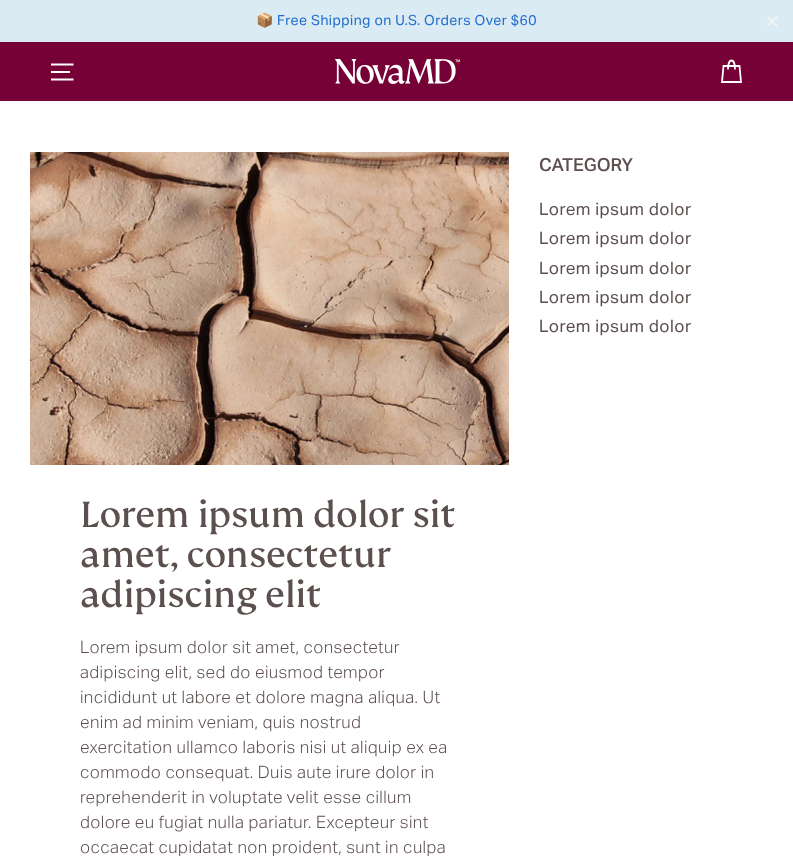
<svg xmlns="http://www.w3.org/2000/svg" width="793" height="856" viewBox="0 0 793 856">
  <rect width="100%" height="100%" fill="#ffffff"/>
  <rect x="0" y="0" width="793" height="42" fill="#dbebf4"/>
  <text x="256" y="25" font-family="Noto Color Emoji" font-size="14" letter-spacing="0.45" fill="#216ecc">📦</text>
  <text x="277" y="25" font-family="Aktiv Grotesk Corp" font-size="14" letter-spacing="0.45" fill="#216ecc">Free Shipping on U.S. Orders Over $60</text>
  <path d="M767.5 16.5L777 26M777 16.5L767.5 26" fill="none" stroke="#fcf7f0" stroke-width="1.4"/>
  <rect x="0" y="42" width="793" height="59" fill="#750137"/>
  <path d="M51 64.5H73.5M51 72H70M51 79.5H73.5" fill="none" stroke="#ffffff" stroke-width="1.8"/>
  <image x="334" y="59" width="126" height="25" href="img1.png"/>
  <path d="M728 69.5C728 57.5 735 57.5 735 69.5M723.5 66H739.5L741 82H722Z" fill="none" stroke="#ffffff" stroke-width="1.8"/>
  <text x="539" y="171" font-family="Aktiv Grotesk Corp" font-size="18" font-weight="500" fill="#5c504f">CATEGORY</text>
  <text x="539" y="215" font-family="Aktiv Grotesk Corp" font-size="17" letter-spacing="0.45" fill="#5c504f">Lorem ipsum dolor</text>
  <text x="539" y="244" font-family="Aktiv Grotesk Corp" font-size="17" letter-spacing="0.45" fill="#5c504f">Lorem ipsum dolor</text>
  <text x="539" y="274" font-family="Aktiv Grotesk Corp" font-size="17" letter-spacing="0.45" fill="#5c504f">Lorem ipsum dolor</text>
  <text x="539" y="303" font-family="Aktiv Grotesk Corp" font-size="17" letter-spacing="0.45" fill="#5c504f">Lorem ipsum dolor</text>
  <text x="539" y="332" font-family="Aktiv Grotesk Corp" font-size="17" letter-spacing="0.45" fill="#5c504f">Lorem ipsum dolor</text>
  <image x="30" y="152" width="479" height="313" href="img2.png"/>
  <text x="80" y="527" font-family="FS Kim" font-size="40" fill="#5c504f">Lorem ipsum dolor sit</text>
  <text x="80" y="567" font-family="FS Kim" font-size="40" fill="#5c504f">amet, consectetur</text>
  <text x="80" y="607" font-family="FS Kim" font-size="40" fill="#5c504f">adipiscing elit</text>
  <text x="80" y="653" font-family="Aktiv Grotesk Corp" font-size="17" font-weight="300" letter-spacing="0.4" fill="#5c504f">Lorem ipsum dolor sit amet, consectetur</text>
  <text x="80" y="678" font-family="Aktiv Grotesk Corp" font-size="17" font-weight="300" letter-spacing="0.4" fill="#5c504f">adipiscing elit, sed do eiusmod tempor</text>
  <text x="80" y="703" font-family="Aktiv Grotesk Corp" font-size="17" font-weight="300" letter-spacing="0.4" fill="#5c504f">incididunt ut labore et dolore magna aliqua. Ut</text>
  <text x="80" y="728" font-family="Aktiv Grotesk Corp" font-size="17" font-weight="300" letter-spacing="0.4" fill="#5c504f">enim ad minim veniam, quis nostrud</text>
  <text x="80" y="753" font-family="Aktiv Grotesk Corp" font-size="17" font-weight="300" letter-spacing="0.4" fill="#5c504f">exercitation ullamco laboris nisi ut aliquip ex ea</text>
  <text x="80" y="778" font-family="Aktiv Grotesk Corp" font-size="17" font-weight="300" letter-spacing="0.4" fill="#5c504f">commodo consequat. Duis aute irure dolor in</text>
  <text x="80" y="803" font-family="Aktiv Grotesk Corp" font-size="17" font-weight="300" letter-spacing="0.4" fill="#5c504f">reprehenderit in voluptate velit esse cillum</text>
  <text x="80" y="828" font-family="Aktiv Grotesk Corp" font-size="17" font-weight="300" letter-spacing="0.4" fill="#5c504f">dolore eu fugiat nulla pariatur. Excepteur sint</text>
  <text x="80" y="853" font-family="Aktiv Grotesk Corp" font-size="17" font-weight="300" letter-spacing="0.4" fill="#5c504f">occaecat cupidatat non proident, sunt in culpa</text>
</svg>
